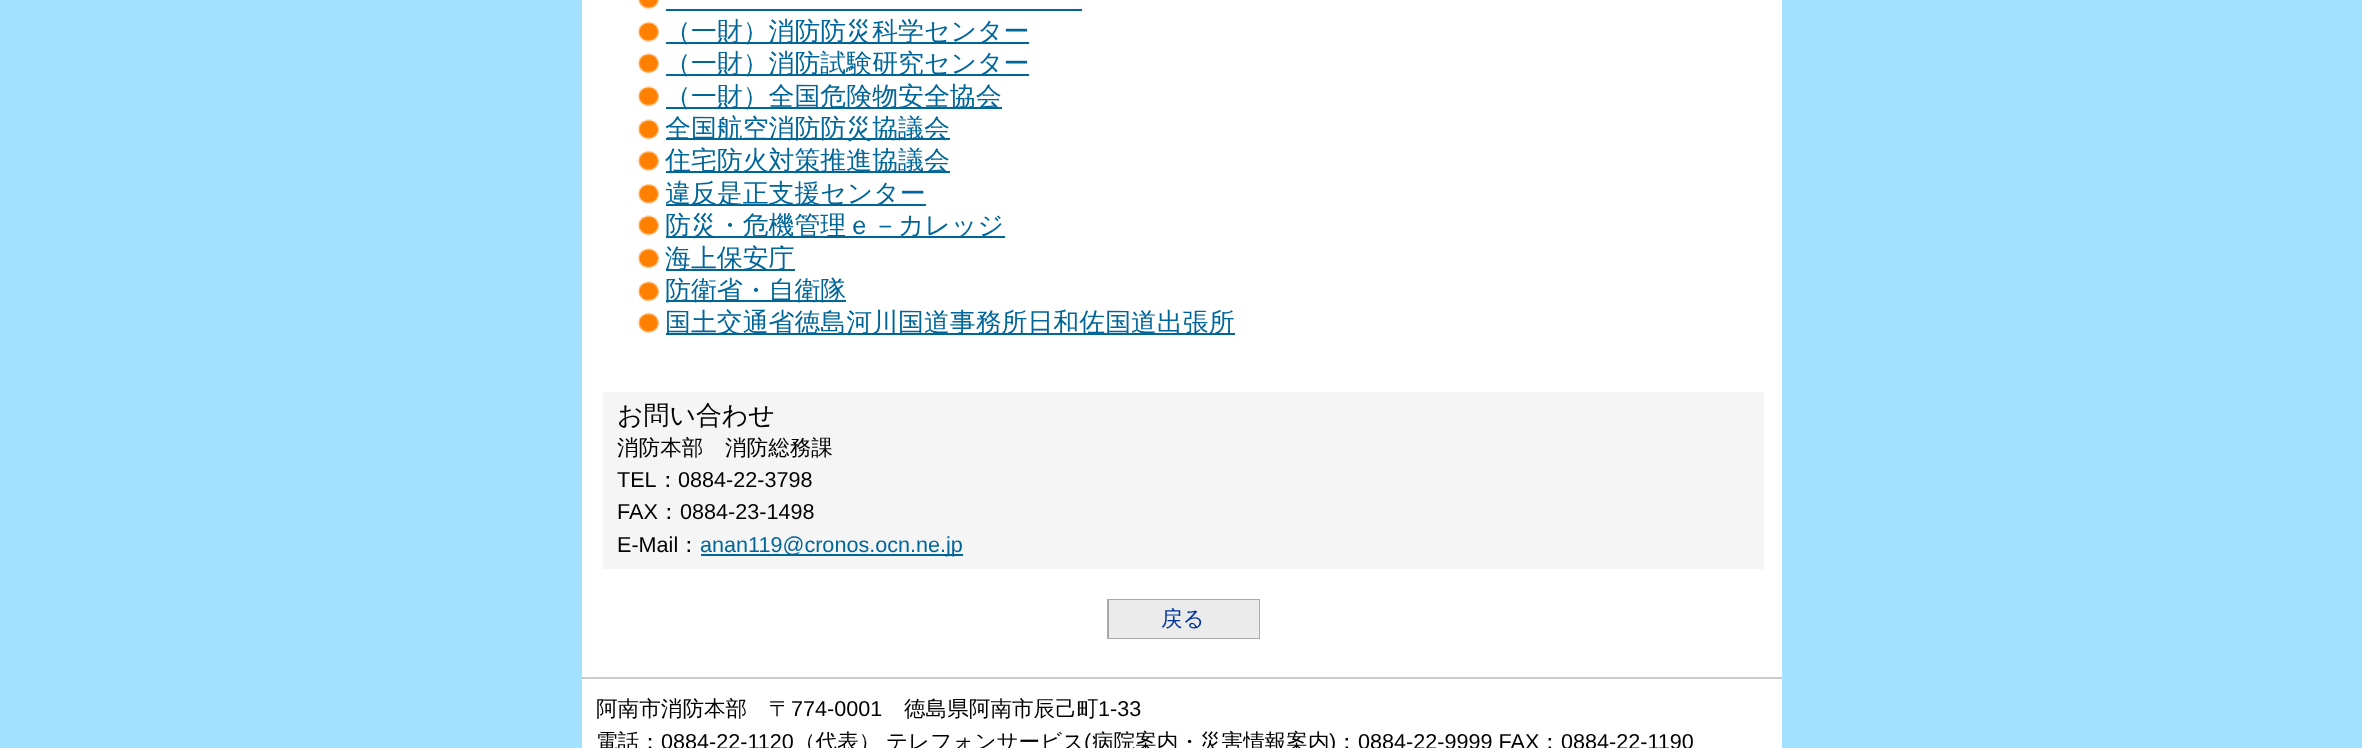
<svg xmlns="http://www.w3.org/2000/svg" width="2362" height="748" viewBox="0 0 2362 748">
  <rect width="100%" height="100%" fill="#a2e1ff"/>
  <rect x="582" y="0" width="1200" height="748" fill="#ffffff"/>
  <image x="637" y="0" width="22" height="9" href="img1.png"/>
  <rect x="666" y="9" width="416" height="2" fill="#006699"/>
  <image x="637" y="21" width="22" height="21" href="img2.png"/>
  <rect x="666" y="42" width="363" height="2" fill="#006699"/>
  <text x="665" y="40" font-family="WenQuanYi Zen Hei" font-size="25.9" font-weight="500" fill="#006699">（一財）消防防災科学センター</text>
  <image x="637" y="53" width="22" height="21" href="img3.png"/>
  <rect x="666" y="74" width="363" height="2" fill="#006699"/>
  <text x="665" y="72" font-family="WenQuanYi Zen Hei" font-size="25.9" font-weight="500" fill="#006699">（一財）消防試験研究センター</text>
  <image x="637" y="86" width="22" height="21" href="img3.png"/>
  <rect x="666" y="107" width="336" height="2" fill="#006699"/>
  <text x="665" y="105" font-family="WenQuanYi Zen Hei" font-size="25.9" font-weight="500" fill="#006699">（一財）全国危険物安全協会</text>
  <image x="637" y="119" width="22" height="21" href="img3.png"/>
  <rect x="666" y="138" width="284" height="2" fill="#006699"/>
  <text x="665" y="137" font-family="WenQuanYi Zen Hei" font-size="25.9" font-weight="500" fill="#006699">全国航空消防防災協議会</text>
  <image x="637" y="150" width="22" height="21" href="img2.png"/>
  <rect x="666" y="171" width="284" height="2" fill="#006699"/>
  <text x="665" y="169" font-family="WenQuanYi Zen Hei" font-size="25.9" font-weight="500" fill="#006699">住宅防火対策推進協議会</text>
  <image x="637" y="183" width="22" height="21" href="img2.png"/>
  <rect x="666" y="204" width="260" height="2" fill="#006699"/>
  <text x="665" y="202" font-family="WenQuanYi Zen Hei" font-size="25.9" font-weight="500" fill="#006699">違反是正支援センター</text>
  <image x="637" y="215" width="22" height="21" href="img3.png"/>
  <rect x="666" y="236" width="339" height="2" fill="#006699"/>
  <text x="665" y="234" font-family="WenQuanYi Zen Hei" font-size="25.9" font-weight="500" fill="#006699">防災・危機管理ｅ－カレッジ</text>
  <image x="637" y="248" width="22" height="21" href="img3.png"/>
  <rect x="666" y="269" width="129" height="2" fill="#006699"/>
  <text x="665" y="267" font-family="WenQuanYi Zen Hei" font-size="25.9" font-weight="500" fill="#006699">海上保安庁</text>
  <image x="637" y="281" width="22" height="21" href="img3.png"/>
  <rect x="666" y="300" width="180" height="2" fill="#006699"/>
  <text x="665" y="299" font-family="WenQuanYi Zen Hei" font-size="25.9" font-weight="500" fill="#006699">防衛省・自衛隊</text>
  <image x="637" y="312" width="22" height="21" href="img2.png"/>
  <rect x="666" y="333" width="569" height="2" fill="#006699"/>
  <text x="665" y="331" font-family="WenQuanYi Zen Hei" font-size="25.9" font-weight="500" fill="#006699">国土交通省徳島河川国道事務所日和佐国道出張所</text>
  <rect x="603" y="392" width="1161" height="177" fill="#f5f5f5"/>
  <text x="617" y="424" font-family="WenQuanYi Zen Hei" font-size="25.9" font-weight="500" fill="#000000">お問い合わせ</text>
  <text x="617" y="455" font-family="WenQuanYi Zen Hei" font-size="21.6" font-weight="500" fill="#000000">消防本部　消防総務課</text>
  <text x="617" y="487" font-family="Liberation Sans" font-size="21.6" fill="#000000">TEL</text>
  <text x="657" y="487" font-family="WenQuanYi Zen Hei" font-size="21.6" font-weight="500" fill="#000000">：</text>
  <text x="678" y="487" font-family="Liberation Sans" font-size="21.6" fill="#000000">0884-22-3798</text>
  <text x="617" y="519" font-family="Liberation Sans" font-size="21.6" fill="#000000">FAX</text>
  <text x="658" y="519" font-family="WenQuanYi Zen Hei" font-size="21.6" font-weight="500" fill="#000000">：</text>
  <text x="680" y="519" font-family="Liberation Sans" font-size="21.6" fill="#000000">0884-23-1498</text>
  <text x="617" y="552" font-family="Liberation Sans" font-size="21.6" fill="#000000">E-Mail</text>
  <text x="678" y="552" font-family="WenQuanYi Zen Hei" font-size="21.6" font-weight="500" fill="#000000">：</text>
  <rect x="701" y="554" width="262" height="2" fill="#006699"/>
  <text x="700" y="552" font-family="Liberation Sans" font-size="21.6" fill="#006699">anan119@cronos.ocn.ne.jp</text>
  <rect x="1108" y="600" width="151" height="38" fill="none" stroke="#aaaaaa" stroke-width="2"/>
  <rect x="1109" y="600" width="150" height="38" fill="#ebebeb"/>
  <text x="1161" y="626" font-family="WenQuanYi Zen Hei" font-size="21.6" font-weight="500" fill="#003399">戻る</text>
  <rect x="582" y="677" width="1200" height="2" fill="#cccccc"/>
  <text x="596" y="716" font-family="WenQuanYi Zen Hei" font-size="21.6" font-weight="500" fill="#000000">阿南市消防本部　〒</text>
  <text x="791" y="716" font-family="Liberation Sans" font-size="21.6" fill="#000000">774-0001</text>
  <text x="904" y="716" font-family="WenQuanYi Zen Hei" font-size="21.6" font-weight="500" fill="#000000">徳島県阿南市辰己町</text>
  <text x="1098" y="716" font-family="Liberation Sans" font-size="21.6" fill="#000000">1-33</text>
  <text x="596" y="749" font-family="WenQuanYi Zen Hei" font-size="21.6" font-weight="500" fill="#000000">電話：</text>
  <text x="661" y="749" font-family="Liberation Sans" font-size="21.6" fill="#000000">0884-22-1120</text>
  <text x="794" y="749" font-family="WenQuanYi Zen Hei" font-size="21.6" font-weight="500" fill="#000000">（代表）</text>
  <text x="886" y="749" font-family="WenQuanYi Zen Hei" font-size="21.6" font-weight="500" fill="#000000">テレフォンサービス</text>
  <text x="1084" y="749" font-family="Liberation Sans" font-size="21.6" fill="#000000">(</text>
  <text x="1092" y="749" font-family="WenQuanYi Zen Hei" font-size="21.6" font-weight="500" fill="#000000">病院案内・災害情報案内</text>
  <text x="1329" y="749" font-family="Liberation Sans" font-size="21.6" fill="#000000">)</text>
  <text x="1336" y="749" font-family="WenQuanYi Zen Hei" font-size="21.6" font-weight="500" fill="#000000">：</text>
  <text x="1358" y="749" font-family="Liberation Sans" font-size="21.6" fill="#000000">0884-22-9999 FAX</text>
  <text x="1539" y="749" font-family="WenQuanYi Zen Hei" font-size="21.6" font-weight="500" fill="#000000">：</text>
  <text x="1561" y="749" font-family="Liberation Sans" font-size="21.6" fill="#000000">0884-22-1190</text>
</svg>
